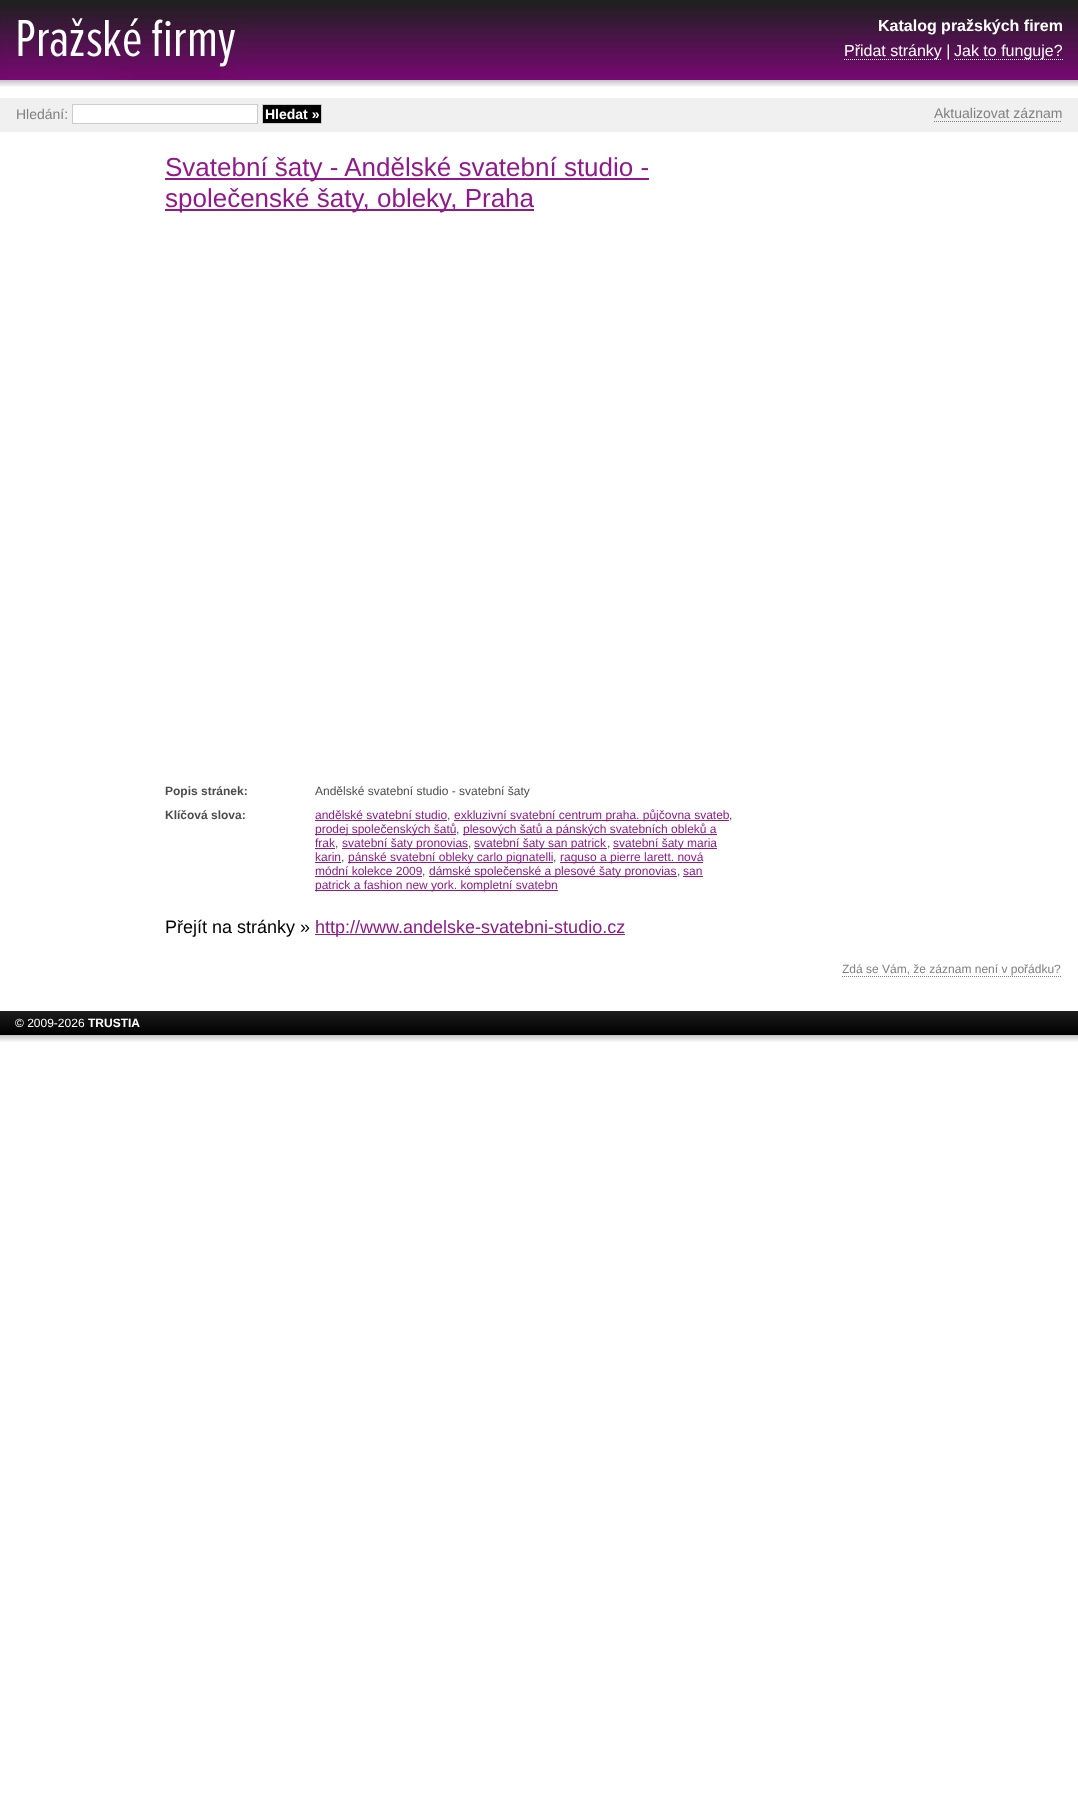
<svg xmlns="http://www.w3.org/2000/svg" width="1078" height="1819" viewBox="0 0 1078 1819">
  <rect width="100%" height="100%" fill="#ffffff"/>
  <image x="0" y="0" width="1078" height="87" href="img1.png"/>
  <image x="0" y="16" width="245" height="64" href="img2.png"/>
  <text x="878" y="31" font-family="Liberation Sans" font-size="16" font-weight="bold" fill="#ffffff">Katalog pražských firem</text>
  <path d="M844 59.5H941" fill="none" stroke="#ffffff" stroke-dasharray="1 1"/>
  <text x="844" y="56" font-family="Liberation Sans" font-size="16" fill="#ffffff">Přidat stránky |</text>
  <path d="M954 59.5H1063" fill="none" stroke="#ffffff" stroke-dasharray="1 1"/>
  <text x="954" y="56" font-family="Liberation Sans" font-size="16" fill="#ffffff">Jak to funguje?</text>
  <rect x="0" y="98" width="1078" height="34" fill="#f0f0f0"/>
  <text x="16" y="119" font-family="Liberation Sans" font-size="14" fill="#808080">Hledání:</text>
  <rect x="72.5" y="104.5" width="185" height="19" fill="#ffffff" stroke="#cccccc"/>
  <rect x="262.5" y="104.5" width="59" height="19" fill="#000000" stroke="#cccccc"/>
  <text x="265" y="119" font-family="Liberation Sans" font-size="14" font-weight="bold" fill="#ffffff">Hledat »</text>
  <path d="M934 121.5H1062" fill="none" stroke="#808080" stroke-dasharray="1 1"/>
  <text x="934" y="118" font-family="Liberation Sans" font-size="14" fill="#808080">Aktualizovat záznam</text>
  <rect x="165" y="178" width="484" height="2" fill="#92198c"/>
  <text x="165" y="176" font-family="Liberation Sans" font-size="26" fill="#92198c">Svatební šaty - Andělské svatební studio -</text>
  <rect x="165" y="209" width="369" height="2" fill="#92198c"/>
  <text x="165" y="207" font-family="Liberation Sans" font-size="26" fill="#92198c">společenské šaty, obleky, Praha</text>
  <text x="165" y="795" font-family="Liberation Sans" font-size="12" font-weight="bold" fill="#4d4d4d">Popis stránek:</text>
  <text x="315" y="795" font-family="Liberation Sans" font-size="12" fill="#4d4d4d">Andělské svatební studio - svatební šaty</text>
  <text x="165" y="819" font-family="Liberation Sans" font-size="12" font-weight="bold" fill="#4d4d4d">Klíčová slova:</text>
  <text x="315" y="819" font-family="Liberation Sans" font-size="12" fill="#92198c">andělské svatební studio</text>
  <rect x="315" y="820" width="132" height="1" fill="#92198c"/>
  <text x="447" y="819" font-family="Liberation Sans" font-size="12" fill="#4d4d4d">,</text>
  <rect x="454" y="820" width="275" height="1" fill="#92198c"/>
  <text x="454" y="819" font-family="Liberation Sans" font-size="12" fill="#92198c">exkluzivní svatební centrum praha. půjčovna svateb</text>
  <text x="729" y="819" font-family="Liberation Sans" font-size="12" fill="#4d4d4d">,</text>
  <rect x="315" y="834" width="141" height="1" fill="#92198c"/>
  <text x="315" y="833" font-family="Liberation Sans" font-size="12" fill="#92198c">prodej společenských šatů</text>
  <text x="456" y="833" font-family="Liberation Sans" font-size="12" fill="#4d4d4d">,</text>
  <rect x="463" y="834" width="254" height="1" fill="#92198c"/>
  <text x="463" y="833" font-family="Liberation Sans" font-size="12" fill="#92198c">plesových šatů a pánských svatebních obleků a</text>
  <text x="315" y="847" font-family="Liberation Sans" font-size="12" fill="#92198c">frak</text>
  <rect x="315" y="848" width="20" height="1" fill="#92198c"/>
  <text x="335" y="847" font-family="Liberation Sans" font-size="12" fill="#4d4d4d">,</text>
  <rect x="342" y="848" width="126" height="1" fill="#92198c"/>
  <text x="342" y="847" font-family="Liberation Sans" font-size="12" fill="#92198c">svatební šaty pronovias</text>
  <text x="468" y="847" font-family="Liberation Sans" font-size="12" fill="#4d4d4d">,</text>
  <rect x="474" y="848" width="133" height="1" fill="#92198c"/>
  <text x="474" y="847" font-family="Liberation Sans" font-size="12" fill="#92198c">svatební šaty san patrick</text>
  <text x="607" y="847" font-family="Liberation Sans" font-size="12" fill="#4d4d4d">,</text>
  <rect x="613" y="848" width="104" height="1" fill="#92198c"/>
  <text x="613" y="847" font-family="Liberation Sans" font-size="12" fill="#92198c">svatební šaty maria</text>
  <text x="315" y="861" font-family="Liberation Sans" font-size="12" fill="#92198c">karin</text>
  <rect x="315" y="862" width="26" height="1" fill="#92198c"/>
  <text x="341" y="861" font-family="Liberation Sans" font-size="12" fill="#4d4d4d">,</text>
  <rect x="348" y="862" width="205" height="1" fill="#92198c"/>
  <text x="348" y="861" font-family="Liberation Sans" font-size="12" fill="#92198c">pánské svatební obleky carlo pignatelli</text>
  <text x="553" y="861" font-family="Liberation Sans" font-size="12" fill="#4d4d4d">,</text>
  <rect x="560" y="862" width="143" height="1" fill="#92198c"/>
  <text x="560" y="861" font-family="Liberation Sans" font-size="12" fill="#92198c">raguso a pierre larett. nová</text>
  <text x="315" y="875" font-family="Liberation Sans" font-size="12" fill="#92198c">módní kolekce 2009</text>
  <rect x="315" y="876" width="107" height="1" fill="#92198c"/>
  <text x="422" y="875" font-family="Liberation Sans" font-size="12" fill="#4d4d4d">,</text>
  <rect x="429" y="876" width="248" height="1" fill="#92198c"/>
  <text x="429" y="875" font-family="Liberation Sans" font-size="12" fill="#92198c">dámské společenské a plesové šaty pronovias</text>
  <text x="677" y="875" font-family="Liberation Sans" font-size="12" fill="#4d4d4d">,</text>
  <text x="683" y="875" font-family="Liberation Sans" font-size="12" fill="#92198c">san</text>
  <rect x="683" y="876" width="20" height="1" fill="#92198c"/>
  <rect x="315" y="890" width="243" height="1" fill="#92198c"/>
  <text x="315" y="889" font-family="Liberation Sans" font-size="12" fill="#92198c">patrick a fashion new york. kompletní svatebn</text>
  <text x="165" y="933" font-family="Liberation Sans" font-size="18" fill="#000000">Přejít na stránky »</text>
  <rect x="315" y="934" width="310" height="1" fill="#92198c"/>
  <text x="315" y="933" font-family="Liberation Sans" font-size="18" fill="#92198c">http://www.andelske-svatebni-studio.cz</text>
  <text x="842" y="973" font-family="Liberation Sans" font-size="12" fill="#808080">Zdá se Vám, že záznam není v pořádku?</text>
  <path d="M842 976.5H1061" fill="none" stroke="#808080" stroke-dasharray="1 1"/>
  <image x="0" y="1011" width="1078" height="32" href="img3.png"/>
  <text x="15" y="1027" font-family="Liberation Sans" font-size="12" fill="#ffffff">© 2009-2026</text>
  <text x="88" y="1027" font-family="Liberation Sans" font-size="12" font-weight="bold" fill="#ffffff">TRUSTIA</text>
</svg>
